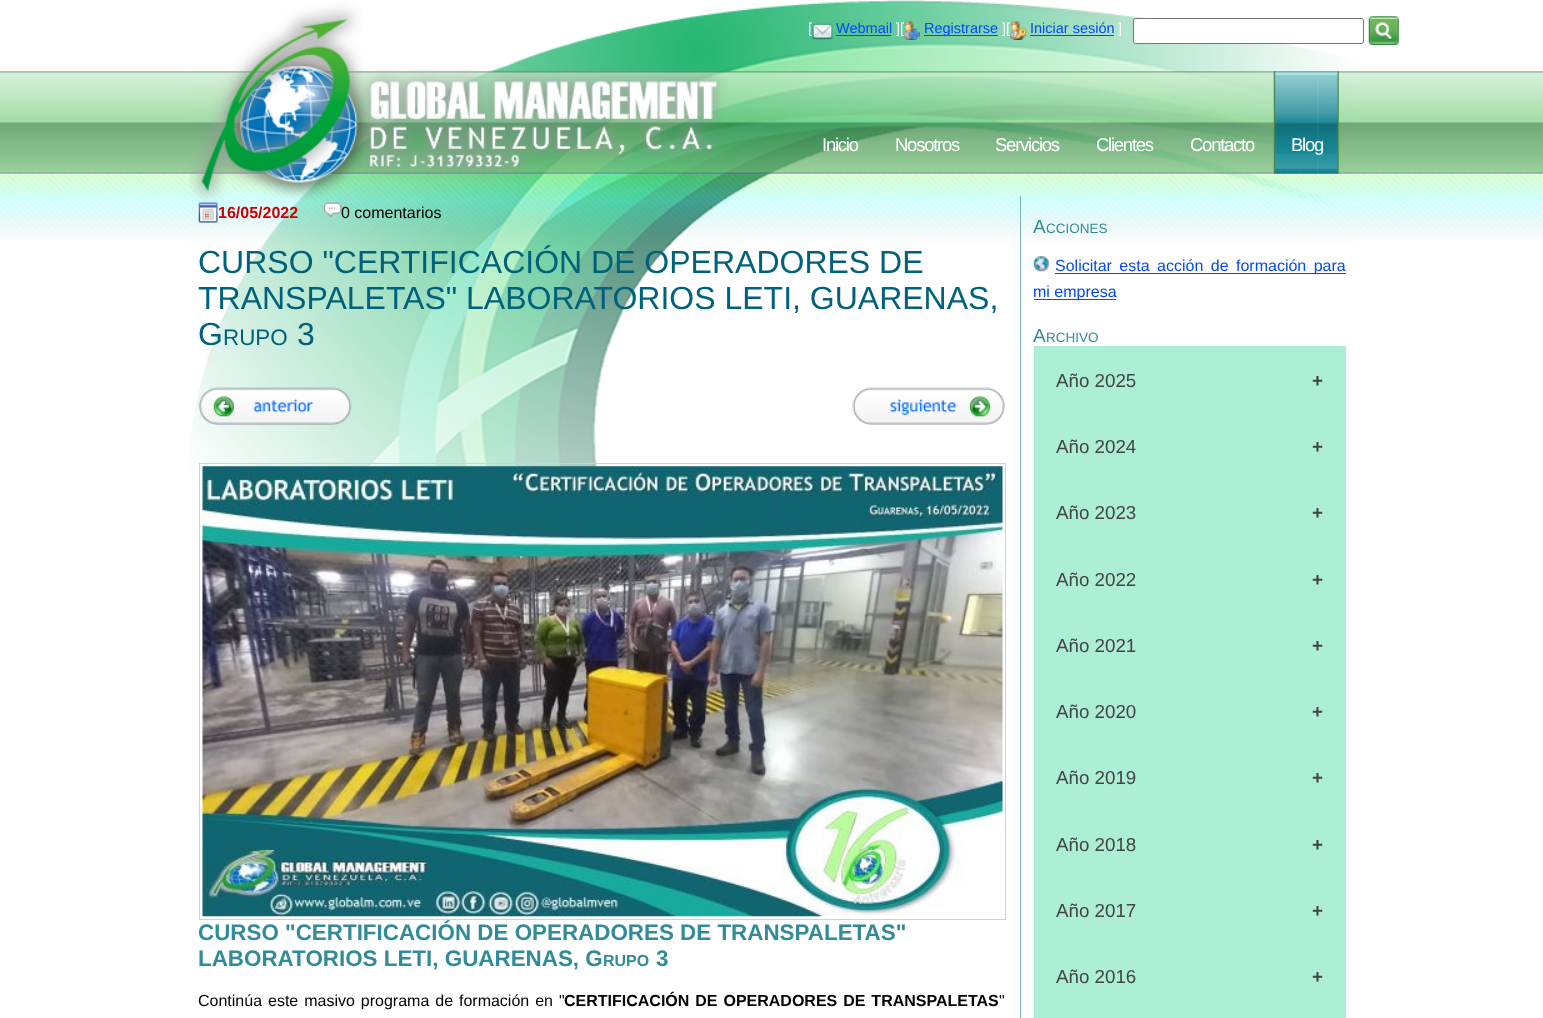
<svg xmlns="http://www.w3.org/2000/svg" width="1543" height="1018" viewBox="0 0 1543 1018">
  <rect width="100%" height="100%" fill="#ffffff"/>
  <image x="0" y="71" width="1543" height="169" href="img1.png"/>
  <image x="189" y="0" width="1168" height="702" href="img2.png"/>
  <text x="808" y="33" font-family="Liberation Sans" font-size="14.5" fill="#ffffff">[</text>
  <image x="812" y="23" width="21" height="17" href="img3.png"/>
  <text x="836" y="33" font-family="Liberation Sans" font-size="14.5" fill="#034af3">Webmail</text>
  <rect x="836" y="35" width="55" height="1" fill="#034af3"/>
  <text x="896" y="33" font-family="Liberation Sans" font-size="14.5" fill="#ffffff">][</text>
  <image x="903" y="21" width="17" height="19" href="img4.png"/>
  <rect x="924" y="35" width="74" height="1" fill="#034af3"/>
  <text x="924" y="33" font-family="Liberation Sans" font-size="14.5" fill="#034af3">Registrarse</text>
  <text x="1002" y="33" font-family="Liberation Sans" font-size="14.5" fill="#ffffff">][</text>
  <image x="1010" y="21" width="17" height="19" href="img5.png"/>
  <text x="1030" y="33" font-family="Liberation Sans" font-size="14.5" fill="#034af3">Iniciar sesión</text>
  <rect x="1030" y="35" width="84" height="1" fill="#034af3"/>
  <text x="1118" y="33" font-family="Liberation Sans" font-size="14.5" fill="#ffffff">]</text>
  <rect x="1133.5" y="18.5" width="230" height="25" rx="2" fill="#ffffff" stroke="#767676"/>
  <image x="1368" y="16" width="31" height="29" href="img6.png"/>
  <text x="822" y="151" font-family="Liberation Sans" font-size="18.5" letter-spacing="-1.25" fill="#ffffff">Inicio</text>
  <text x="995" y="151" font-family="Liberation Sans" font-size="18.5" letter-spacing="-1.25" fill="#ffffff">Servicios</text>
  <text x="1096" y="151" font-family="Liberation Sans" font-size="18.5" letter-spacing="-1.25" fill="#ffffff">Clientes</text>
  <image x="1316" y="71" width="23" height="103" href="img7.png"/>
  <image x="1273" y="71" width="45" height="103" href="img8.png"/>
  <text x="895" y="151" font-family="Liberation Sans" font-size="18.5" letter-spacing="-1.25" fill="#ffffff">Nosotros</text>
  <text x="1190" y="151" font-family="Liberation Sans" font-size="18.5" letter-spacing="-1.25" fill="#ffffff">Contacto</text>
  <text x="1291" y="151" font-family="Liberation Sans" font-size="18.5" letter-spacing="-1.25" fill="#ffffff">Blog</text>
  <image x="198" y="202" width="20" height="21" href="img9.png"/>
  <text x="218" y="218" font-family="Liberation Sans" font-size="16" font-weight="bold" fill="#cc0000">16/05/2022</text>
  <image x="323" y="202" width="19" height="16" href="img10.png"/>
  <text x="341" y="218" font-family="Liberation Sans" font-size="16" fill="#000000">0 comentarios</text>
  <text x="198" y="273" font-family="Liberation Sans" font-size="32" fill="#00627a">CURSO "CERTIFICACIÓN DE OPERADORES DE</text>
  <text x="198" y="309" font-family="Liberation Sans" font-size="32" fill="#00627a">TRANSPALETAS" LABORATORIOS LETI, GUARENAS,</text>
  <text x="198" y="345" font-family="Liberation Sans" font-size="32" fill="#00627a">G</text>
  <text x="223" y="345" font-family="Liberation Sans" font-size="22.4" fill="#00627a">RUPO</text>
  <text x="297" y="345" font-family="Liberation Sans" font-size="32" fill="#00627a">3</text>
  <image x="198" y="387" width="154" height="38" href="img11.png"/>
  <image x="852" y="387" width="153" height="38" href="img12.png"/>
  <rect x="199.5" y="463.5" width="806" height="456" fill="none" stroke="#b8dcdc"/>
  <image x="202" y="466" width="801" height="451" href="img13.png"/>
  <text x="198" y="940" font-family="Liberation Sans" font-size="22.4" font-weight="bold" fill="#328b96">CURSO "CERTIFICACIÓN DE OPERADORES DE TRANSPALETAS"</text>
  <text x="198" y="966" font-family="Liberation Sans" font-size="22.4" font-weight="bold" fill="#328b96">LABORATORIOS LETI, GUARENAS, G</text>
  <text x="603" y="966" font-family="Liberation Sans" font-size="16" font-weight="bold" fill="#328b96">RUPO</text>
  <text x="656" y="966" font-family="Liberation Sans" font-size="22.4" font-weight="bold" fill="#328b96">3</text>
  <text x="198" y="1006" word-spacing="1.5" font-family="Liberation Sans" font-size="16" fill="#000000">Continúa este masivo programa de formación en "</text>
  <text x="564" y="1006" word-spacing="1.5" font-family="Liberation Sans" font-size="16" font-weight="bold" fill="#000000">CERTIFICACIÓN DE OPERADORES DE TRANSPALETAS</text>
  <text x="999" y="1006" font-family="Liberation Sans" font-size="16" fill="#000000">"</text>
  <rect x="1020" y="196" width="1" height="822" fill="#77b4b2"/>
  <text x="1033" y="233" font-family="Liberation Sans" font-size="19" fill="#328b96">A</text>
  <text x="1046" y="233" font-family="Liberation Sans" font-size="13.5" fill="#328b96">CCIONES</text>
  <image x="1033" y="256" width="16" height="16" href="img14.png"/>
  <rect x="1055" y="273" width="291" height="1" fill="#034af3"/>
  <text x="1055" y="271" word-spacing="3" font-family="Liberation Sans" font-size="16" fill="#034af3">Solicitar esta acción de formación para</text>
  <rect x="1034" y="299" width="82" height="1" fill="#034af3"/>
  <text x="1033" y="297" font-family="Liberation Sans" font-size="16" fill="#034af3">mi empresa</text>
  <text x="1033" y="342" font-family="Liberation Sans" font-size="19" fill="#328b96">A</text>
  <text x="1046" y="342" font-family="Liberation Sans" font-size="13.5" fill="#328b96">RCHIVO</text>
  <rect x="1034" y="346" width="312" height="672" fill="#adeed7"/>
  <text x="1056" y="387" font-family="Liberation Sans" font-size="18.75" fill="#444444">Año 2025</text>
  <text x="1312" y="387" font-family="Liberation Sans" font-size="18.75" font-weight="bold" fill="#444444">+</text>
  <text x="1056" y="453" font-family="Liberation Sans" font-size="18.75" fill="#444444">Año 2024</text>
  <text x="1312" y="453" font-family="Liberation Sans" font-size="18.75" font-weight="bold" fill="#444444">+</text>
  <text x="1056" y="519" font-family="Liberation Sans" font-size="18.75" fill="#444444">Año 2023</text>
  <text x="1312" y="519" font-family="Liberation Sans" font-size="18.75" font-weight="bold" fill="#444444">+</text>
  <text x="1056" y="586" font-family="Liberation Sans" font-size="18.75" fill="#444444">Año 2022</text>
  <text x="1312" y="586" font-family="Liberation Sans" font-size="18.75" font-weight="bold" fill="#444444">+</text>
  <text x="1056" y="652" font-family="Liberation Sans" font-size="18.75" fill="#444444">Año 2021</text>
  <text x="1312" y="652" font-family="Liberation Sans" font-size="18.75" font-weight="bold" fill="#444444">+</text>
  <text x="1056" y="718" font-family="Liberation Sans" font-size="18.75" fill="#444444">Año 2020</text>
  <text x="1312" y="718" font-family="Liberation Sans" font-size="18.75" font-weight="bold" fill="#444444">+</text>
  <text x="1056" y="784" font-family="Liberation Sans" font-size="18.75" fill="#444444">Año 2019</text>
  <text x="1312" y="784" font-family="Liberation Sans" font-size="18.75" font-weight="bold" fill="#444444">+</text>
  <text x="1056" y="851" font-family="Liberation Sans" font-size="18.75" fill="#444444">Año 2018</text>
  <text x="1312" y="851" font-family="Liberation Sans" font-size="18.75" font-weight="bold" fill="#444444">+</text>
  <text x="1056" y="917" font-family="Liberation Sans" font-size="18.75" fill="#444444">Año 2017</text>
  <text x="1312" y="917" font-family="Liberation Sans" font-size="18.75" font-weight="bold" fill="#444444">+</text>
  <text x="1056" y="983" font-family="Liberation Sans" font-size="18.75" fill="#444444">Año 2016</text>
  <text x="1312" y="983" font-family="Liberation Sans" font-size="18.75" font-weight="bold" fill="#444444">+</text>
</svg>
